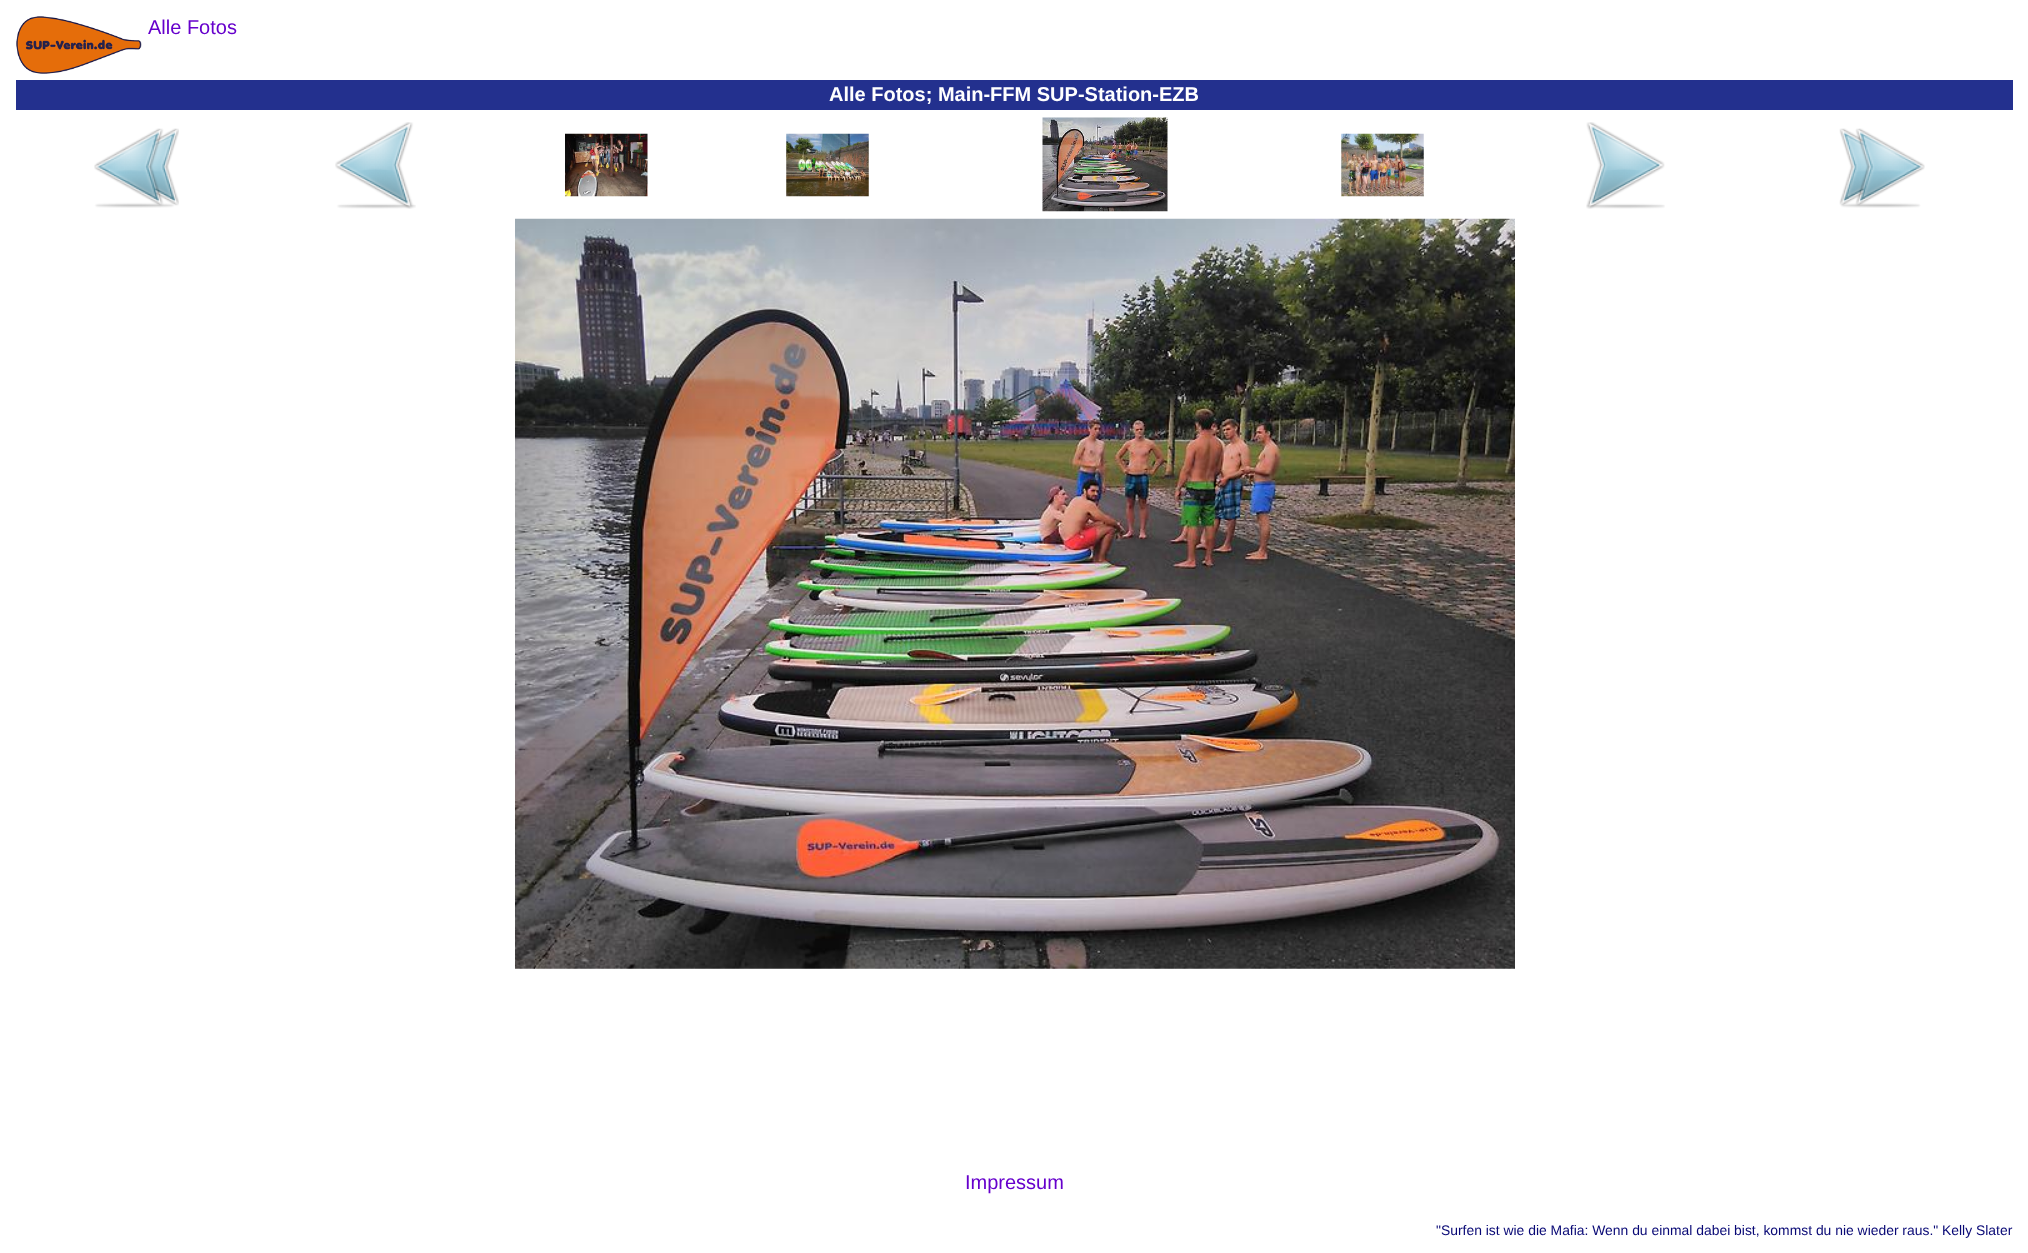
<svg xmlns="http://www.w3.org/2000/svg" width="2028" height="1253" viewBox="0 0 2028 1253">
  <rect width="100%" height="100%" fill="#ffffff"/>
  <image x="16" y="16" width="126" height="58" href="img1.png"/>
  <text x="148" y="34" font-family="Liberation Sans" font-size="20" fill="#6600cc">Alle Fotos</text>
  <rect x="16" y="80" width="1997" height="30" fill="#23308e"/>
  <text x="829" y="101" font-family="Liberation Sans" font-size="20" font-weight="bold" fill="#ffffff">Alle Fotos; Main-FFM SUP-Station-EZB</text>
  <image x="94" y="128" width="85" height="80" href="img2.png"/>
  <image x="335" y="122" width="81" height="87" href="img3.png"/>
  <image x="565" y="133" width="83" height="64" href="img4.png"/>
  <image x="786" y="133" width="83" height="64" href="img5.png"/>
  <image x="1042" y="117" width="126" height="95" href="img6.png"/>
  <image x="1341" y="133" width="83" height="64" href="img7.png"/>
  <image x="1586" y="122" width="79" height="87" href="img8.png"/>
  <image x="1839" y="128" width="86" height="80" href="img9.png"/>
  <image x="515" y="218" width="1000" height="751" href="img10.png"/>
  <text x="965" y="1189" font-family="Liberation Sans" font-size="20" fill="#6600cc">Impressum</text>
  <text x="1436" y="1235" font-family="Liberation Sans" font-size="13.9" fill="#080875">"Surfen ist wie die Mafia: Wenn du einmal dabei bist, kommst du nie wieder raus." Kelly Slater</text>
</svg>
